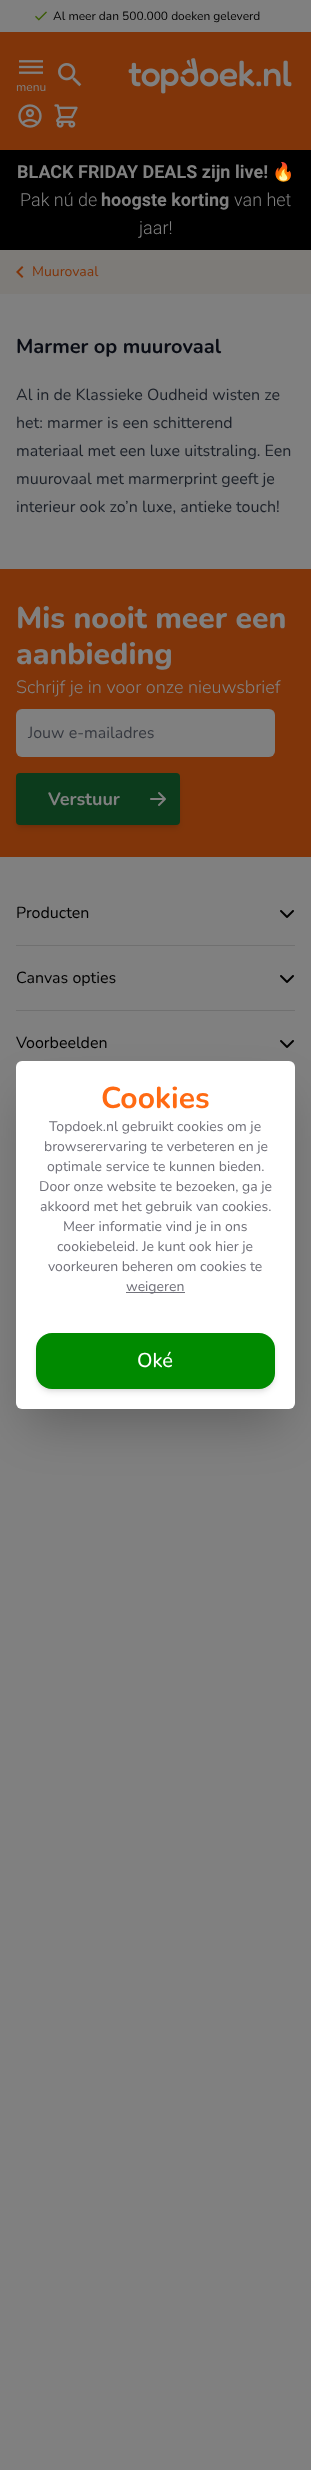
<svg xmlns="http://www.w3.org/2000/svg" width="311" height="2470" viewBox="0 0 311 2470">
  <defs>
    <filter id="blur1" x="-50%" y="-200%" width="200%" height="500%"><feGaussianBlur stdDeviation="2"/></filter>
    <filter id="blur2" x="-50%" y="-200%" width="200%" height="500%"><feGaussianBlur stdDeviation="3"/></filter>
    <filter id="blur3" x="-50%" y="-200%" width="200%" height="500%"><feGaussianBlur stdDeviation="25"/></filter>
  </defs>
  <rect width="100%" height="100%" fill="#808080"/>
  <image x="35" y="11" width="12" height="10" href="img1.png"/>
  <text x="53" y="20" font-family="Nunito" font-size="12" fill="#000000">Al meer dan 500.000 doeken geleverd</text>
  <rect x="0" y="32" width="311" height="118" fill="#80350a"/>
  <image x="58" y="63" width="24" height="24" href="img2.png"/>
  <image x="19" y="60" width="24" height="14" href="img3.png"/>
  <text x="16" y="91" font-family="Nunito" font-size="12" fill="#808080">menu</text>
  <image x="128" y="58" width="164" height="36" href="img4.png"/>
  <image x="18" y="104" width="24" height="24" href="img5.png"/>
  <image x="54" y="104" width="24" height="24" href="img6.png"/>
  <rect x="0" y="150" width="311" height="100" fill="#000000"/>
  <text x="17" y="178" font-family="Roboto" font-size="18" font-weight="bold" fill="#808080">BLACK FRIDAY DEALS zijn live!</text>
  <text x="272" y="178" font-family="Noto Color Emoji" font-size="18" fill="#808080">🔥</text>
  <text x="20" y="206" font-family="Roboto" font-size="18" font-weight="300" fill="#808080">Pak nú de</text>
  <text x="101" y="206" font-family="Roboto" font-size="18" font-weight="bold" fill="#808080">hoogste korting</text>
  <text x="234" y="206" font-family="Roboto" font-size="18" font-weight="300" fill="#808080">van het</text>
  <text x="139" y="234" font-family="Roboto" font-size="18" font-weight="300" fill="#808080">jaar!</text>
  <rect x="0" y="250" width="311" height="44" fill="#7d7b78"/>
  <image x="16" y="266" width="8" height="12" href="img7.png"/>
  <text x="32" y="276" font-family="Nunito" font-size="14" fill="#80350a">Muurovaal</text>
  <text x="16" y="353" font-family="Nunito" font-size="20" font-weight="bold" fill="#090c14">Marmer op muurovaal</text>
  <text x="16" y="400" font-family="Nunito" font-size="16" fill="#1c2129">Al in de Klassieke Oudheid wisten ze</text>
  <text x="16" y="428" font-family="Nunito" font-size="16" fill="#1c2129">het: marmer is een schitterend</text>
  <text x="16" y="456" font-family="Nunito" font-size="16" fill="#1c2129">materiaal met een luxe uitstraling. Een</text>
  <text x="16" y="484" font-family="Nunito" font-size="16" fill="#1c2129">muurovaal met marmerprint geeft je</text>
  <text x="16" y="512" font-family="Nunito" font-size="16" fill="#1c2129">interieur ook zo’n luxe, antieke touch!</text>
  <rect x="0" y="569" width="311" height="288" fill="#80350a"/>
  <text x="16" y="628" font-family="Nunito" font-size="30" font-weight="800" fill="#808080">Mis nooit meer een</text>
  <text x="16" y="664" font-family="Nunito" font-size="30" font-weight="800" fill="#808080">aanbieding</text>
  <text x="16" y="693" font-family="Nunito" font-size="18" font-weight="300" fill="#808080">Schrijf je in voor onze nieuwsbrief</text>
  <rect x="16" y="709" width="259" height="48" rx="6" fill="#808080"/>
  <text x="28" y="738" font-family="Nunito" font-size="16" fill="#363940">Jouw e-mailadres</text>
  <rect x="18" y="777" width="160" height="48" rx="2" fill="#000000" fill-opacity="0.1" filter="url(#blur1)"/>
  <rect x="17" y="778" width="162" height="50" rx="3" fill="#000000" fill-opacity="0.1" filter="url(#blur2)"/>
  <rect x="16" y="773" width="164" height="52" rx="4" fill="#0c3b1c"/>
  <text x="48" y="805" font-family="Nunito" font-size="18" font-weight="bold" fill="#808080">Verstuur</text>
  <image x="150" y="792" width="16" height="14" href="img8.png"/>
  <rect x="16" y="945" width="279" height="1" fill="#707070"/>
  <text x="16" y="918" font-family="Nunito" font-size="16" fill="#000000">Producten</text>
  <image x="280" y="910" width="14" height="8" href="img9.png"/>
  <rect x="16" y="1010" width="279" height="1" fill="#707070"/>
  <text x="16" y="983" font-family="Nunito" font-size="16" fill="#000000">Canvas opties</text>
  <image x="280" y="975" width="14" height="8" href="img9.png"/>
  <text x="16" y="1048" font-family="Nunito" font-size="16" fill="#000000">Voorbeelden</text>
  <image x="280" y="1040" width="14" height="8" href="img9.png"/>
  <rect x="28" y="1098" width="255" height="324" fill="#000000" fill-opacity="0.25" filter="url(#blur3)"/>
  <rect x="16" y="1061" width="279" height="348" rx="6" fill="#ffffff"/>
  <text x="101" y="1108" font-family="Nunito" font-size="30" font-weight="bold" fill="#ff6a13">Cookies</text>
  <text x="49" y="1131" font-family="Nunito" font-size="14" fill="#71717a">Topdoek.nl gebruikt cookies om je</text>
  <text x="44" y="1151" font-family="Nunito" font-size="14" fill="#71717a">browserervaring te verbeteren en je</text>
  <text x="47" y="1171" font-family="Nunito" font-size="14" fill="#71717a">optimale service te kunnen bieden.</text>
  <text x="39" y="1191" font-family="Nunito" font-size="14" fill="#71717a">Door onze website te bezoeken, ga je</text>
  <text x="40" y="1211" font-family="Nunito" font-size="14" fill="#71717a">akkoord met het gebruik van cookies.</text>
  <text x="63" y="1231" font-family="Nunito" font-size="14" fill="#71717a">Meer informatie vind je in ons</text>
  <text x="57" y="1251" font-family="Nunito" font-size="14" fill="#71717a">cookiebeleid. Je kunt ook hier je</text>
  <text x="48" y="1271" font-family="Nunito" font-size="14" fill="#71717a">voorkeuren beheren om cookies te</text>
  <rect x="126" y="1292" width="59" height="1" fill="#71717a"/>
  <text x="126" y="1291" font-family="Nunito" font-size="14" fill="#71717a">weigeren</text>
  <rect x="38" y="1337" width="235" height="52" rx="14" fill="#000000" fill-opacity="0.1" filter="url(#blur1)"/>
  <rect x="37" y="1338" width="237" height="54" rx="15" fill="#000000" fill-opacity="0.1" filter="url(#blur2)"/>
  <rect x="36" y="1333" width="239" height="56" rx="16" fill="#008a00"/>
  <text x="137" y="1367" font-family="Nunito" font-size="20" font-weight="500" fill="#ffffff">Oké</text>
</svg>
